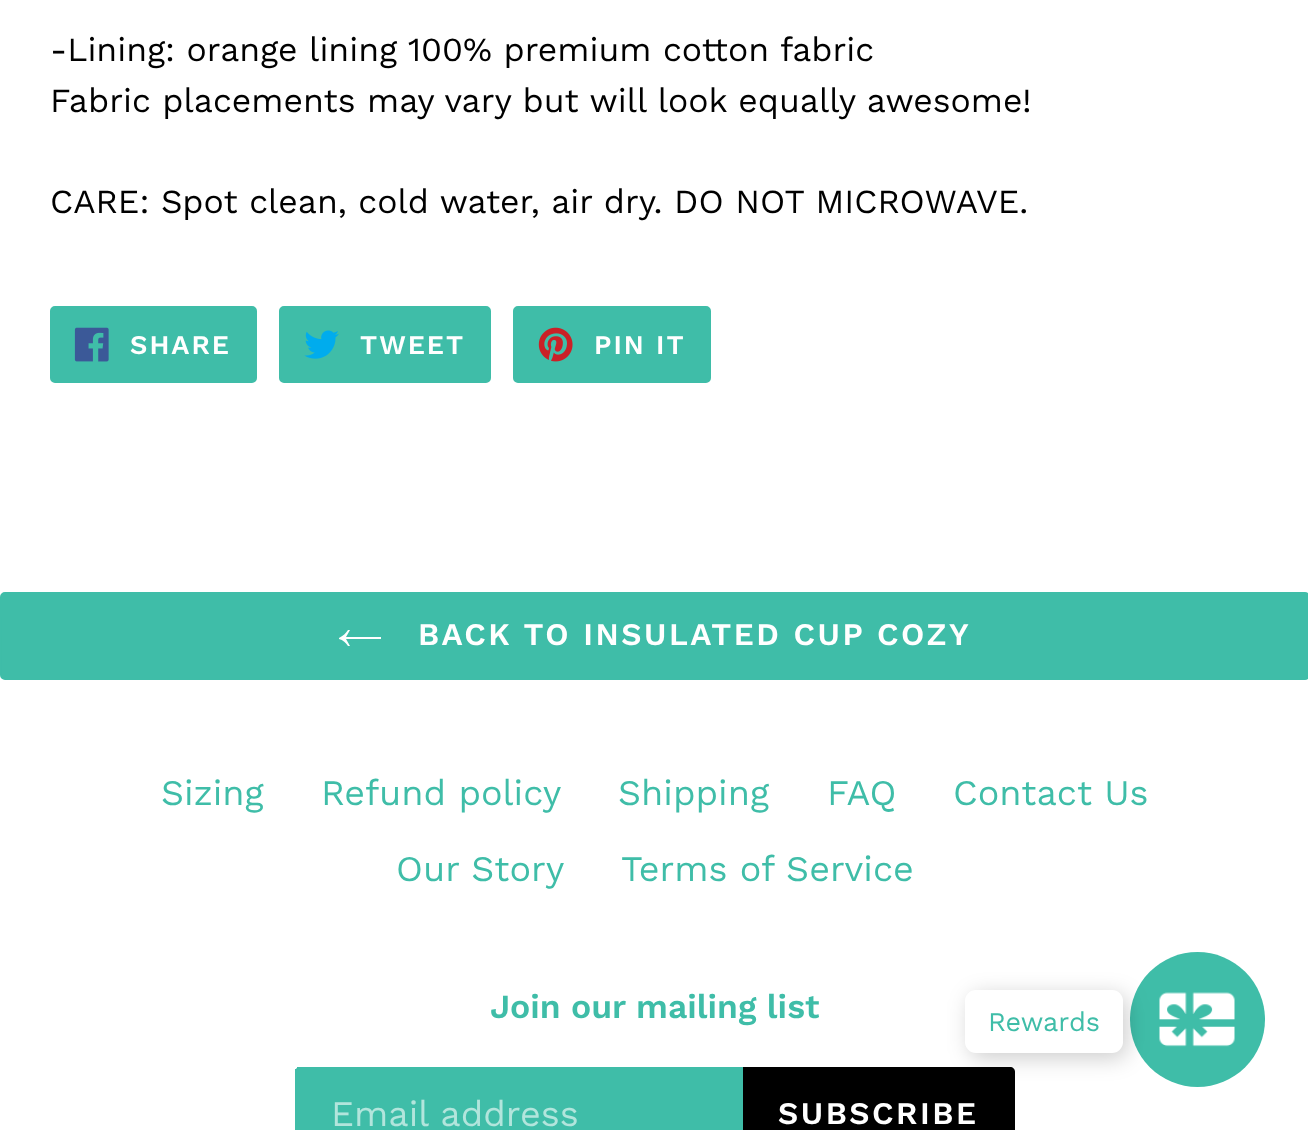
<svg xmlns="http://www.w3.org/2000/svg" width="1308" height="1130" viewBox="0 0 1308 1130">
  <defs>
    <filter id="blur1" x="-50%" y="-200%" width="200%" height="500%"><feGaussianBlur stdDeviation="11"/></filter>
  </defs>
  <rect width="100%" height="100%" fill="#ffffff"/>
  <text x="50" y="61" font-family="Work Sans" font-size="33.75" fill="#000000">-Lining: orange lining 100% premium cotton fabric</text>
  <text x="50" y="112" font-family="Work Sans" font-size="33.75" fill="#000000">Fabric placements may vary but will look equally awesome!</text>
  <text x="50" y="213" font-family="Work Sans" font-size="33.75" fill="#000000">CARE: Spot clean, cold water, air dry. DO NOT MICROWAVE.</text>
  <rect x="51" y="307" width="205" height="75" rx="4" fill="#3fbda8" stroke="#3fbda8" stroke-width="2"/>
  <image x="74" y="327" width="35" height="35" href="img1.png"/>
  <text x="130" y="354" font-family="Work Sans" font-size="27" font-weight="600" letter-spacing="2" fill="#ffffff">SHARE</text>
  <rect x="280" y="307" width="210" height="75" rx="4" fill="#3fbda8" stroke="#3fbda8" stroke-width="2"/>
  <image x="304" y="330" width="35" height="29" href="img2.png"/>
  <text x="360" y="354" font-family="Work Sans" font-size="27" font-weight="600" letter-spacing="2" fill="#ffffff">TWEET</text>
  <rect x="514" y="307" width="196" height="75" rx="4" fill="#3fbda8" stroke="#3fbda8" stroke-width="2"/>
  <image x="538" y="327" width="35" height="35" href="img3.png"/>
  <text x="594" y="354" font-family="Work Sans" font-size="27" font-weight="600" letter-spacing="2" fill="#ffffff">PIN IT</text>
  <rect x="1" y="593" width="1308" height="86" rx="4" fill="#3fbda8" stroke="#3fbda8" stroke-width="2"/>
  <path d="M348 646C346 643 343 640 339 639V638C343 636 346 633 348 630H350L346 637H381V639H346L350 646Z" fill="#ffffff" fill-rule="evenodd"/>
  <text x="418" y="645" font-family="Work Sans" font-size="31.5" font-weight="600" letter-spacing="2.5" fill="#ffffff">BACK TO INSULATED CUP COZY</text>
  <text x="161" y="805" font-family="Work Sans" font-size="36" fill="#3fbda8">Sizing</text>
  <text x="321" y="805" font-family="Work Sans" font-size="36" fill="#3fbda8">Refund policy</text>
  <text x="618" y="805" font-family="Work Sans" font-size="36" fill="#3fbda8">Shipping</text>
  <text x="827" y="805" font-family="Work Sans" font-size="36" fill="#3fbda8">FAQ</text>
  <text x="953" y="805" font-family="Work Sans" font-size="36" fill="#3fbda8">Contact Us</text>
  <text x="396" y="881" font-family="Work Sans" font-size="36" fill="#3fbda8">Our Story</text>
  <text x="621" y="881" font-family="Work Sans" font-size="36" fill="#3fbda8">Terms of Service</text>
  <text x="490" y="1018" font-family="Work Sans" font-size="33.75" font-weight="600" fill="#3fbda8">Join our mailing list</text>
  <path d="M300 1067H743V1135H300C297 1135 295 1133 295 1130V1072C295 1069 297 1067 300 1067Z" fill="#3fbda8"/>
  <rect x="297" y="1067" width="3" height="1" fill="#3fbda8"/>
  <rect x="295" y="1069" width="1" height="3" fill="#3fbda8"/>
  <text x="331" y="1126" font-family="Work Sans" font-size="36" fill="#b2e5dc">Email address</text>
  <path d="M743 1067H1010C1013 1067 1015 1069 1015 1072V1130C1015 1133 1013 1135 1010 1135H743Z" fill="#000000"/>
  <text x="778" y="1124" font-family="Work Sans" font-size="31.5" font-weight="600" letter-spacing="2.5" fill="#ffffff">SUBSCRIBE</text>
  <circle cx="1197.5" cy="1019.5" r="67.5" fill="#3fbda8"/>
  <image x="1159" y="992" width="76" height="55" href="img4.png"/>
  <rect x="970" y="995" width="157" height="63" rx="11" fill="#000000" fill-opacity="0.2" filter="url(#blur1)"/>
  <rect x="965" y="990" width="158" height="63" rx="11" fill="#ffffff"/>
  <text x="988" y="1031" font-family="Work Sans" font-size="27" fill="#3fbda8">Rewards</text>
</svg>
